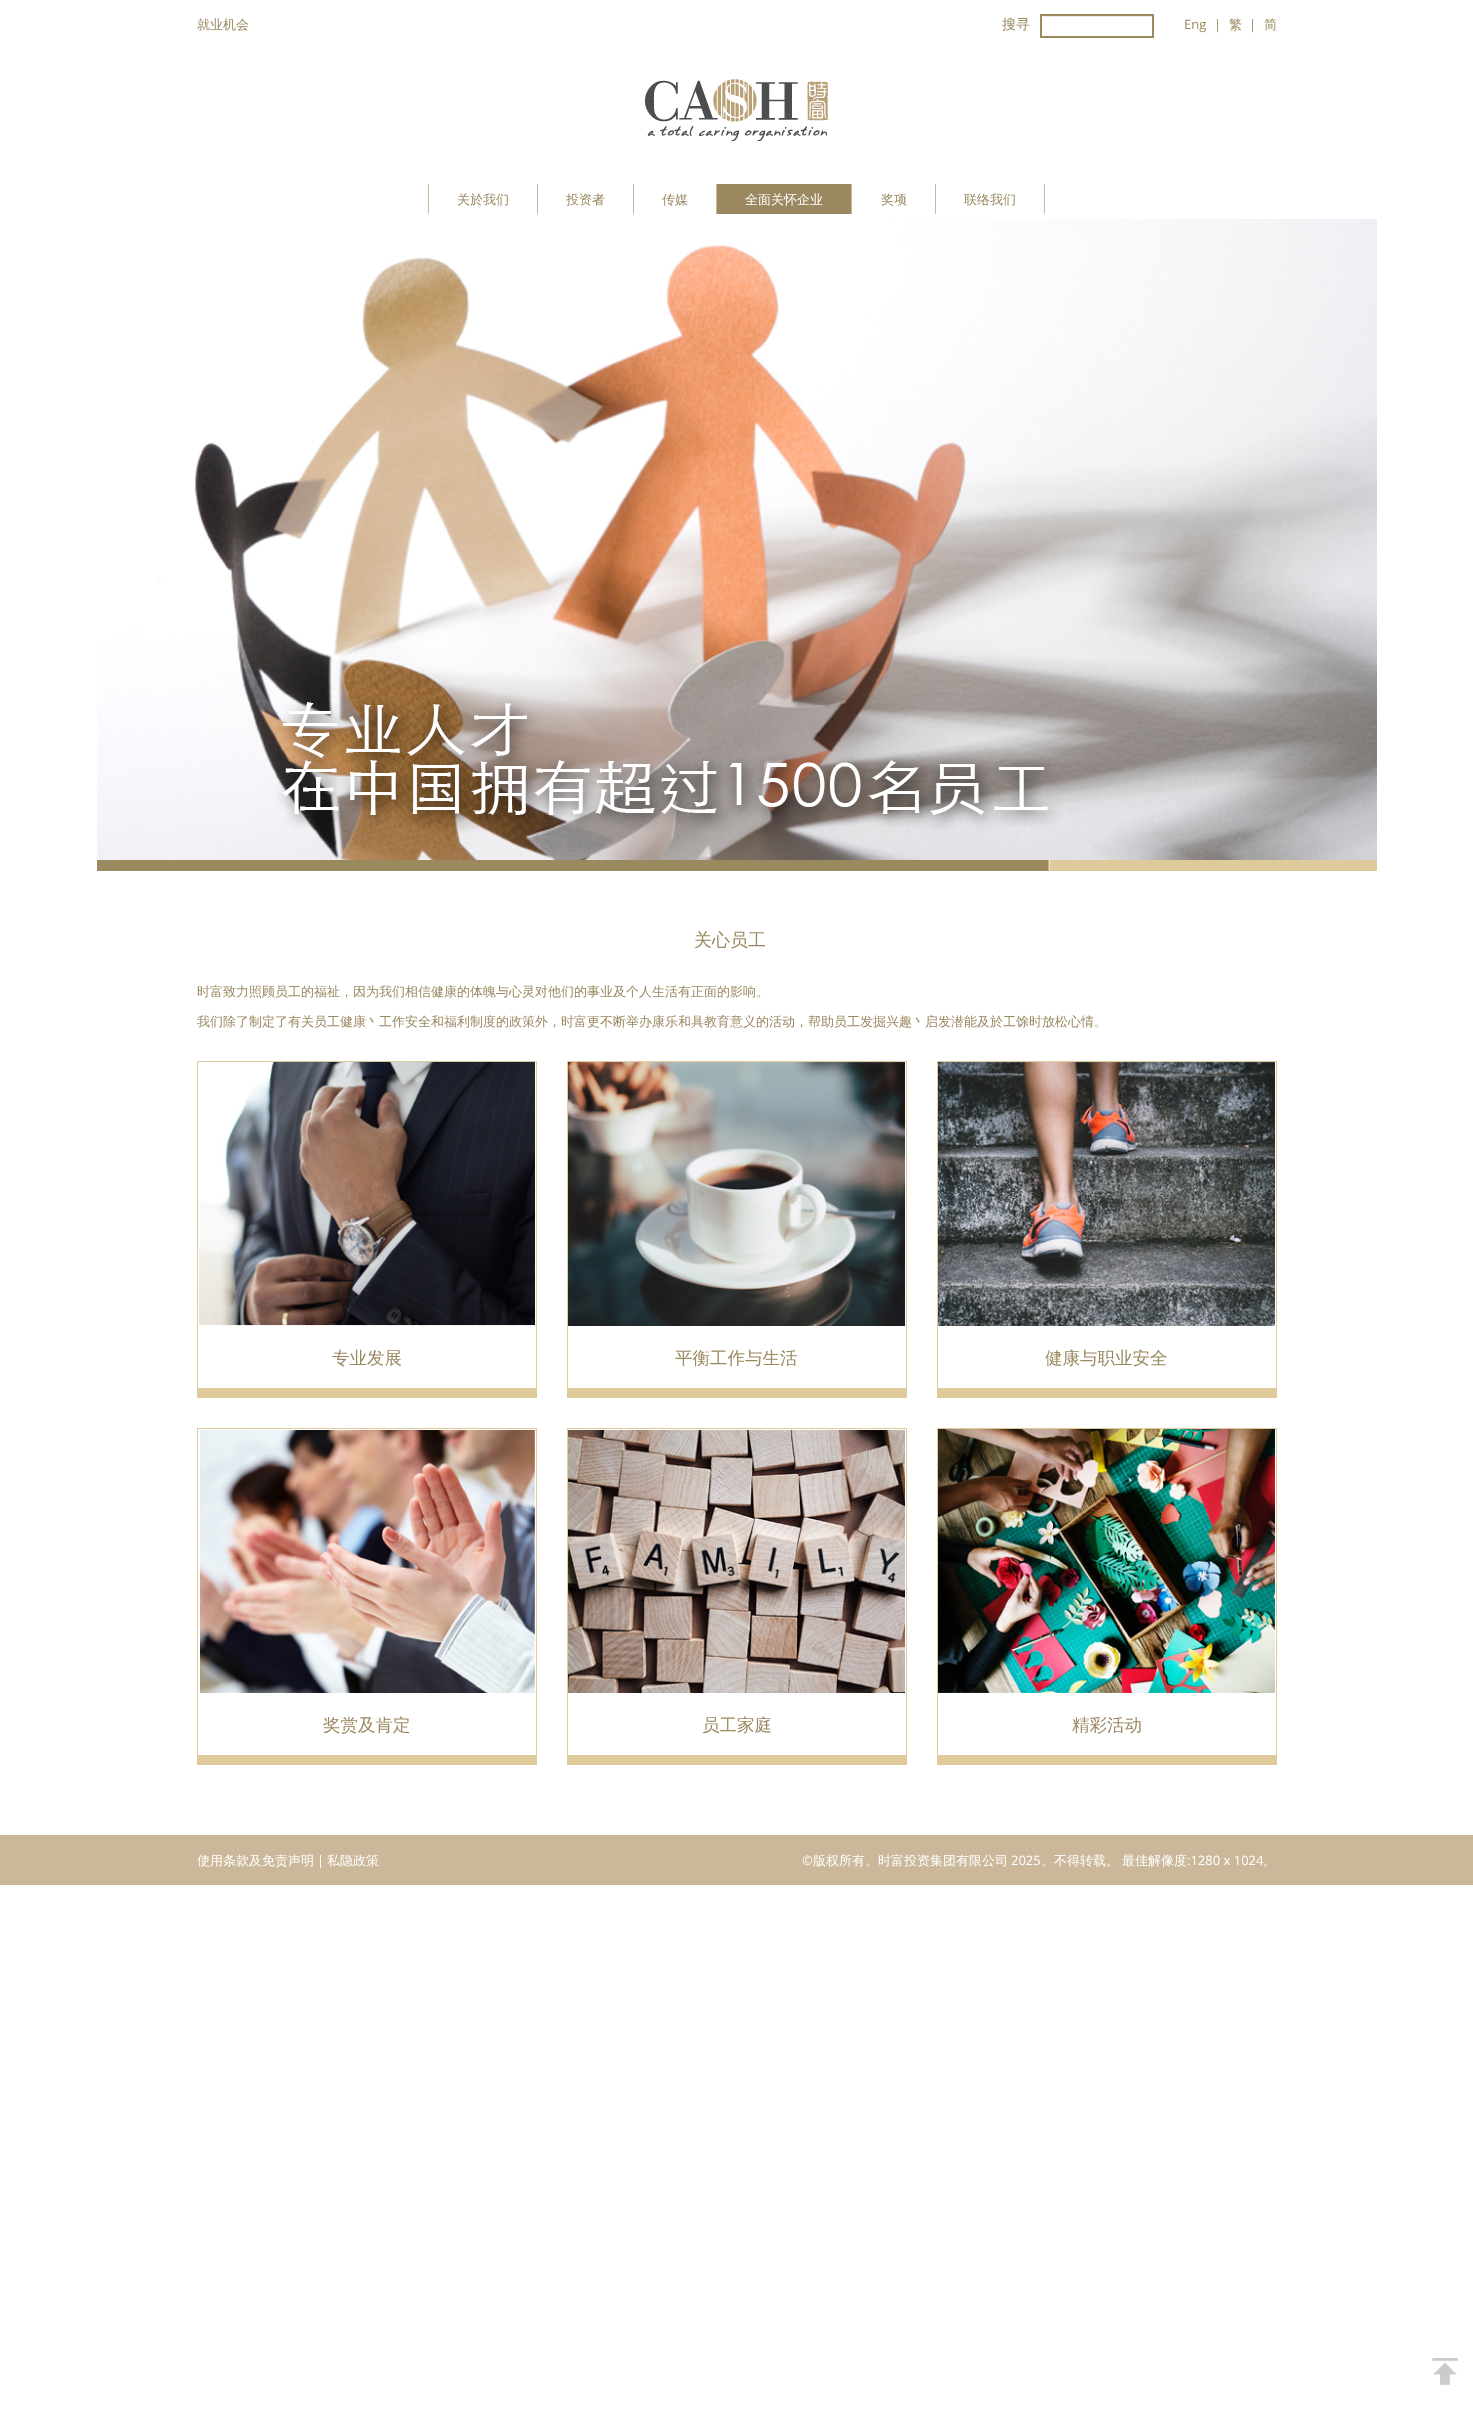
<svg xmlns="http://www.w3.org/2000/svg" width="1473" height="2415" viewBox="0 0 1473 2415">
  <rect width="100%" height="100%" fill="#ffffff"/>
  <text x="197" y="29" font-family="WenQuanYi Zen Hei" font-size="13" font-weight="500" fill="#9a8860">就业机会</text>
  <text x="1002" y="29" font-family="WenQuanYi Zen Hei" font-size="14" font-weight="500" fill="#9a8860">搜寻</text>
  <rect x="1042" y="16" width="110" height="1" fill="#ececec"/>
  <rect x="1041" y="15" width="112" height="22" fill="none" stroke="#9b8a5f" stroke-width="2"/>
  <text x="1184" y="29" font-family="Open Sans" font-size="13" fill="#9a8860">Eng</text>
  <text x="1214" y="29" font-family="Open Sans" font-size="13" fill="#9a8860">|</text>
  <text x="1229" y="29" font-family="WenQuanYi Zen Hei" font-size="13" font-weight="500" fill="#9a8860">繁</text>
  <text x="1249" y="29" font-family="Open Sans" font-size="13" fill="#9a8860">|</text>
  <text x="1264" y="29" font-family="WenQuanYi Zen Hei" font-size="13" font-weight="500" fill="#9a8860">简</text>
  <image x="645" y="79" width="183" height="62" href="img1.png"/>
  <rect x="537" y="184" width="1" height="30" fill="#cbb89a"/>
  <rect x="428" y="184" width="1" height="30" fill="#cbb89a"/>
  <text x="457" y="204" font-family="WenQuanYi Zen Hei" font-size="13" font-weight="500" fill="#9a8860">关於我们</text>
  <rect x="633" y="184" width="1" height="30" fill="#cbb89a"/>
  <text x="566" y="204" font-family="WenQuanYi Zen Hei" font-size="13" font-weight="500" fill="#9a8860">投资者</text>
  <rect x="716" y="184" width="1" height="30" fill="#cbb89a"/>
  <text x="662" y="204" font-family="WenQuanYi Zen Hei" font-size="13" font-weight="500" fill="#9a8860">传媒</text>
  <rect x="851" y="184" width="1" height="30" fill="#cbb89a"/>
  <rect x="717" y="184" width="134" height="30" fill="#9a8860"/>
  <text x="745" y="204" font-family="WenQuanYi Zen Hei" font-size="13" font-weight="500" fill="#ffffff">全面关怀企业</text>
  <rect x="935" y="184" width="1" height="30" fill="#cbb89a"/>
  <text x="881" y="204" font-family="WenQuanYi Zen Hei" font-size="13" font-weight="500" fill="#9a8860">奖项</text>
  <rect x="1044" y="184" width="1" height="30" fill="#cbb89a"/>
  <text x="964" y="204" font-family="WenQuanYi Zen Hei" font-size="13" font-weight="500" fill="#9a8860">联络我们</text>
  <image x="97" y="219" width="1280" height="641" href="img2.png"/>
  <image x="97" y="860" width="1280" height="11" href="img3.png"/>
  <text x="694" y="946" font-family="WenQuanYi Zen Hei" font-size="18" font-weight="500" fill="#9a8860">关心员工</text>
  <text x="197" y="996" font-family="WenQuanYi Zen Hei" font-size="13" font-weight="500" fill="#9a8860">时富致力照顾员工的福祉，因为我们相信健康的体魄与心灵对他们的事业及个人生活有正面的影响。</text>
  <text x="197" y="1026" font-family="WenQuanYi Zen Hei" font-size="13" font-weight="500" fill="#9a8860">我们除了制定了有关员工健康丶工作安全和福利制度的政策外，时富更不断举办康乐和具教育意义的活动，帮助员工发掘兴趣丶启发潜能及於工馀时放松心情。</text>
  <rect x="197" y="1061" width="340" height="1" fill="#dfca9b"/>
  <rect x="536" y="1061" width="1" height="327" fill="#dfca9b"/>
  <rect x="198" y="1388" width="339" height="10" fill="#dfca9b"/>
  <rect x="197" y="1061" width="1" height="337" fill="#dfca9b"/>
  <image x="199" y="1062" width="336" height="264" href="img4.png"/>
  <text x="332" y="1364" font-family="WenQuanYi Zen Hei" font-size="17.5" font-weight="500" fill="#9a8860">专业发展</text>
  <rect x="567" y="1061" width="340" height="1" fill="#dfca9b"/>
  <rect x="906" y="1061" width="1" height="327" fill="#dfca9b"/>
  <rect x="568" y="1388" width="339" height="10" fill="#dfca9b"/>
  <rect x="567" y="1061" width="1" height="337" fill="#dfca9b"/>
  <image x="568" y="1062" width="337" height="264" href="img5.png"/>
  <text x="675" y="1364" font-family="WenQuanYi Zen Hei" font-size="17.5" font-weight="500" fill="#9a8860">平衡工作与生活</text>
  <rect x="937" y="1061" width="340" height="1" fill="#dfca9b"/>
  <rect x="1276" y="1061" width="1" height="327" fill="#dfca9b"/>
  <rect x="938" y="1388" width="339" height="10" fill="#dfca9b"/>
  <rect x="937" y="1061" width="1" height="337" fill="#dfca9b"/>
  <image x="938" y="1062" width="337" height="264" href="img6.png"/>
  <text x="1045" y="1364" font-family="WenQuanYi Zen Hei" font-size="17.5" font-weight="500" fill="#9a8860">健康与职业安全</text>
  <rect x="197" y="1428" width="340" height="1" fill="#dfca9b"/>
  <rect x="536" y="1428" width="1" height="327" fill="#dfca9b"/>
  <rect x="198" y="1755" width="339" height="10" fill="#dfca9b"/>
  <rect x="197" y="1428" width="1" height="337" fill="#dfca9b"/>
  <image x="200" y="1430" width="335" height="263" href="img7.png"/>
  <text x="323" y="1731" font-family="WenQuanYi Zen Hei" font-size="17.5" font-weight="500" fill="#9a8860">奖赏及肯定</text>
  <rect x="567" y="1428" width="340" height="1" fill="#dfca9b"/>
  <rect x="906" y="1428" width="1" height="327" fill="#dfca9b"/>
  <rect x="568" y="1755" width="339" height="10" fill="#dfca9b"/>
  <rect x="567" y="1428" width="1" height="337" fill="#dfca9b"/>
  <image x="568" y="1430" width="337" height="263" href="img8.png"/>
  <text x="702" y="1731" font-family="WenQuanYi Zen Hei" font-size="17.5" font-weight="500" fill="#9a8860">员工家庭</text>
  <rect x="937" y="1428" width="340" height="1" fill="#dfca9b"/>
  <rect x="1276" y="1428" width="1" height="327" fill="#dfca9b"/>
  <rect x="938" y="1755" width="339" height="10" fill="#dfca9b"/>
  <rect x="937" y="1428" width="1" height="337" fill="#dfca9b"/>
  <image x="938" y="1429" width="337" height="264" href="img9.png"/>
  <text x="1072" y="1731" font-family="WenQuanYi Zen Hei" font-size="17.5" font-weight="500" fill="#9a8860">精彩活动</text>
  <rect x="0" y="1835" width="1473" height="50" fill="#cbb89a"/>
  <text x="197" y="1865" font-family="WenQuanYi Zen Hei" font-size="13" font-weight="500" fill="#ffffff">使用条款及免责声明</text>
  <text x="317" y="1865" font-family="Open Sans" font-size="13" fill="#ffffff">|</text>
  <text x="327" y="1865" font-family="WenQuanYi Zen Hei" font-size="13" font-weight="500" fill="#ffffff">私隐政策</text>
  <text x="802" y="1865" font-family="Open Sans" font-size="13" fill="#ffffff">©</text>
  <text x="813" y="1865" font-family="WenQuanYi Zen Hei" font-size="13" font-weight="500" fill="#ffffff">版权所有。时富投资集团有限公司</text>
  <text x="1011" y="1865" font-family="Open Sans" font-size="13" fill="#ffffff">2025</text>
  <text x="1041" y="1865" font-family="WenQuanYi Zen Hei" font-size="13" font-weight="500" fill="#ffffff">。不得转载。</text>
  <text x="1122" y="1865" font-family="WenQuanYi Zen Hei" font-size="13" font-weight="500" fill="#ffffff">最佳解像度</text>
  <text x="1187" y="1865" font-family="Open Sans" font-size="13" fill="#ffffff">:1280 x 1024</text>
  <text x="1263" y="1865" font-family="WenQuanYi Zen Hei" font-size="13" font-weight="500" fill="#ffffff">。</text>
  <image x="1432" y="2358" width="26" height="27" href="img10.png"/>
</svg>
